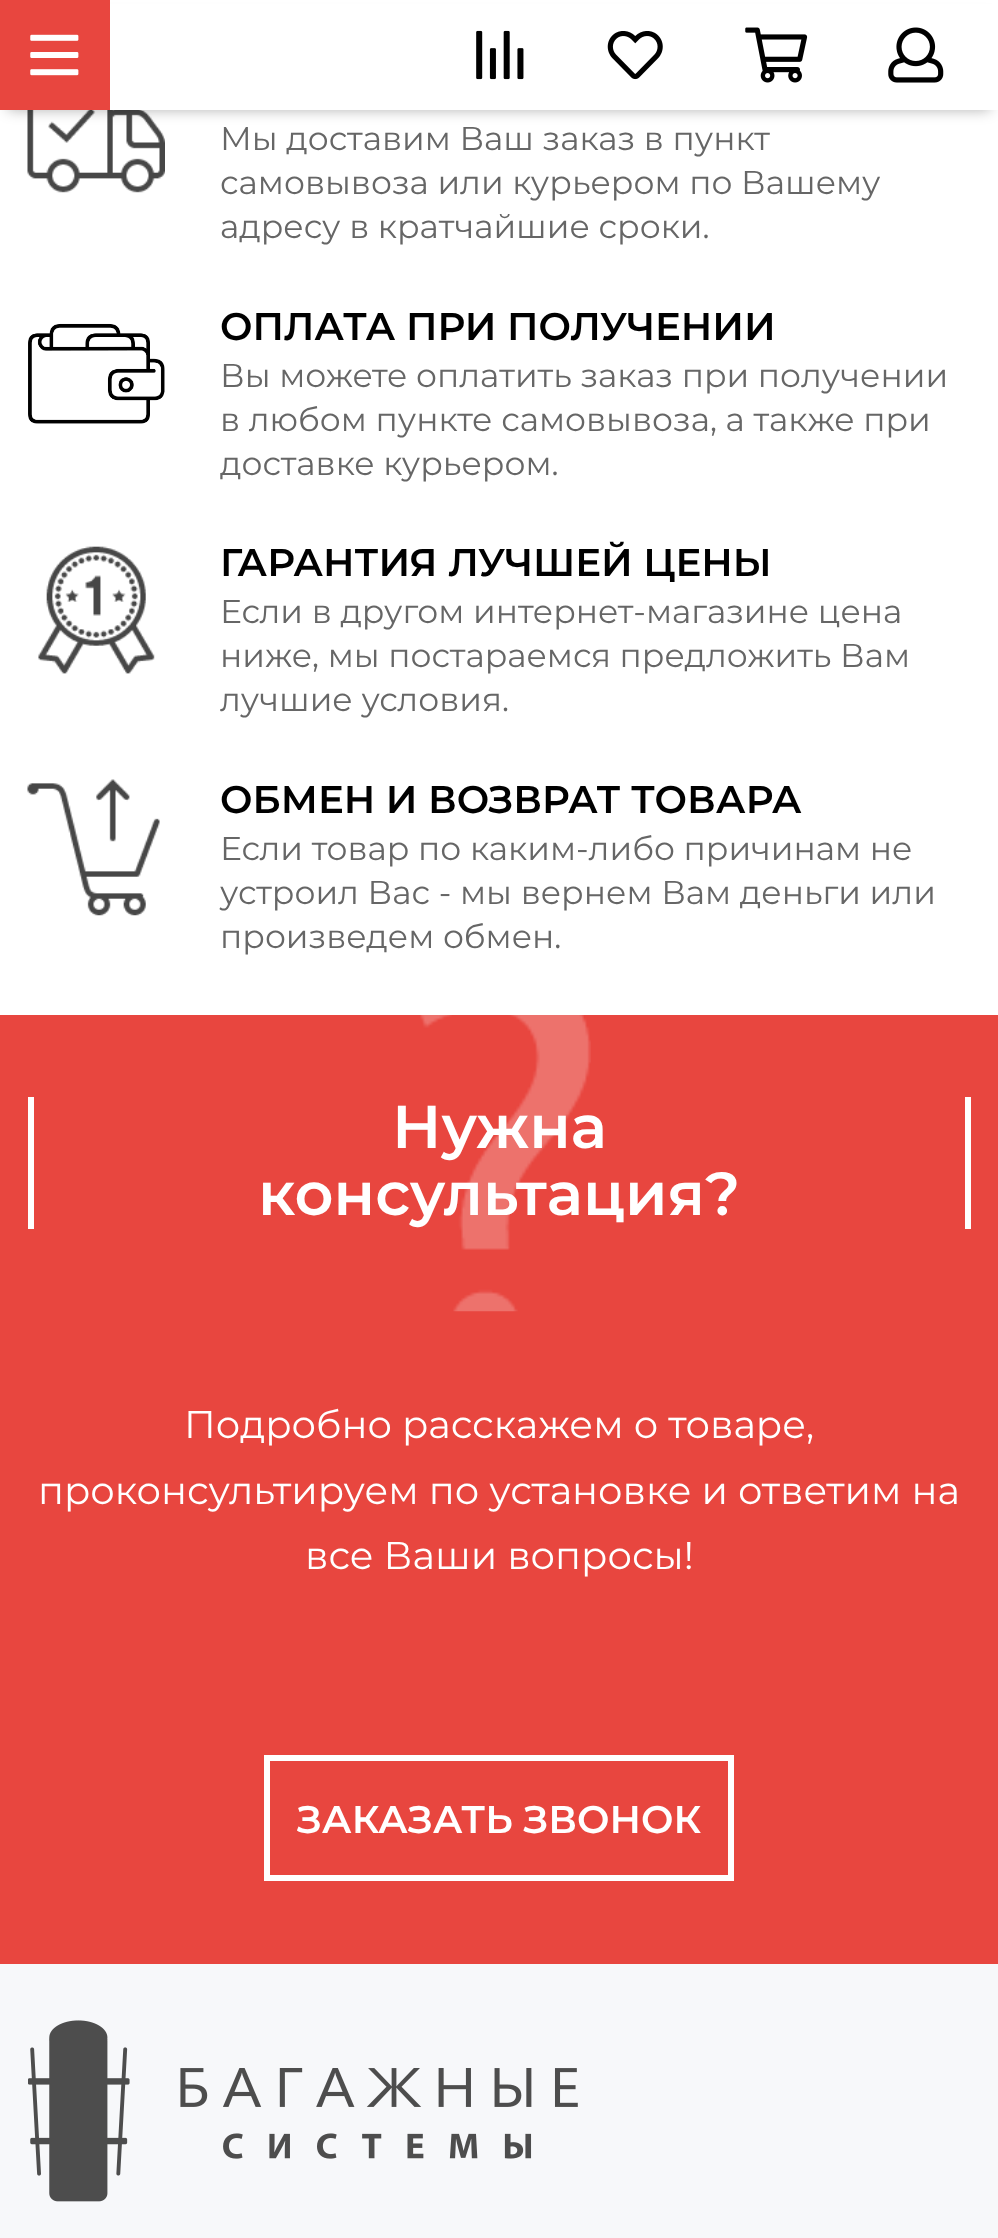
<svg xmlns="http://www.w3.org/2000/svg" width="998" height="2238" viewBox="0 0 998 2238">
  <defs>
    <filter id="blur1" x="-50%" y="-200%" width="200%" height="500%"><feGaussianBlur stdDeviation="7"/></filter>
  </defs>
  <rect width="100%" height="100%" fill="#ffffff"/>
  <image x="27" y="110" width="138" height="83" href="img6.png"/>
  <rect x="8" y="17" width="982" height="93" fill="#000000" fill-opacity="0.3" filter="url(#blur1)"/>
  <rect x="110" y="4" width="888" height="106" fill="#ffffff"/>
  <rect x="0" y="0" width="110" height="110" fill="#e8463f"/>
  <image x="30" y="34" width="49" height="42" href="img1.png"/>
  <image x="476" y="30" width="48" height="50" href="img2.png"/>
  <image x="607" y="31" width="56" height="49" href="img3.png"/>
  <image x="745" y="27" width="63" height="56" href="img4.png"/>
  <image x="888" y="27" width="56" height="56" href="img5.png"/>
  <text x="220" y="150" font-family="Montserrat" font-size="33" fill="#666666">Мы доставим Ваш заказ в пункт</text>
  <text x="220" y="194" font-family="Montserrat" font-size="33" fill="#666666">самовывоза или курьером по Вашему</text>
  <text x="220" y="238" font-family="Montserrat" font-size="33" fill="#666666">адресу в кратчайшие сроки.</text>
  <image x="28" y="323" width="137" height="101" href="img7.png"/>
  <text x="220" y="340" font-family="Montserrat" font-size="38.5" font-weight="600" fill="#000000">ОПЛАТА ПРИ ПОЛУЧЕНИИ</text>
  <text x="220" y="387" font-family="Montserrat" font-size="33" fill="#666666">Вы можете оплатить заказ при получении</text>
  <text x="220" y="431" font-family="Montserrat" font-size="33" fill="#666666">в любом пункте самовывоза, а также при</text>
  <text x="220" y="475" font-family="Montserrat" font-size="33" fill="#666666">доставке курьером.</text>
  <image x="38" y="546" width="117" height="128" href="img8.png"/>
  <text x="220" y="576" font-family="Montserrat" font-size="38.5" font-weight="600" fill="#000000">ГАРАНТИЯ ЛУЧШЕЙ ЦЕНЫ</text>
  <text x="220" y="623" font-family="Montserrat" font-size="33" fill="#666666">Если в другом интернет-магазине цена</text>
  <text x="220" y="667" font-family="Montserrat" font-size="33" fill="#666666">ниже, мы постараемся предложить Вам</text>
  <text x="220" y="711" font-family="Montserrat" font-size="33" fill="#666666">лучшие условия.</text>
  <image x="27" y="779" width="133" height="137" href="img9.png"/>
  <text x="220" y="813" font-family="Montserrat" font-size="38.5" font-weight="600" fill="#000000">ОБМЕН И ВОЗВРАТ ТОВАРА</text>
  <text x="220" y="860" font-family="Montserrat" font-size="33" fill="#666666">Если товар по каким-либо причинам не</text>
  <text x="220" y="904" font-family="Montserrat" font-size="33" fill="#666666">устроил Вас - мы вернем Вам деньги или</text>
  <text x="220" y="948" font-family="Montserrat" font-size="33" fill="#666666">произведем обмен.</text>
  <rect x="0" y="1015" width="998" height="949" fill="#e8463f"/>
  <image x="420" y="1015" width="171" height="297" href="img10.png"/>
  <rect x="965" y="1097" width="6" height="132" fill="#ffffff"/>
  <rect x="28" y="1097" width="6" height="132" fill="#ffffff"/>
  <text x="392" y="1148" font-family="Montserrat" font-size="60.5" font-weight="600" fill="#ffffff">Нужна</text>
  <text x="258" y="1215" font-family="Montserrat" font-size="60.5" font-weight="600" fill="#ffffff">консультация?</text>
  <text x="184" y="1438" font-family="Montserrat" font-size="38.5" fill="#ffffff">Подробно расскажем о товаре,</text>
  <text x="38" y="1504" font-family="Montserrat" font-size="38.5" fill="#ffffff">проконсультируем по установке и ответим на</text>
  <text x="305" y="1569" font-family="Montserrat" font-size="38.5" fill="#ffffff">все Ваши вопросы!</text>
  <rect x="267" y="1758" width="464" height="120" fill="none" stroke="#ffffff" stroke-width="6"/>
  <text x="297" y="1833" font-family="Montserrat" font-size="38.5" font-weight="600" fill="#ffffff">ЗАКАЗАТЬ ЗВОНОК</text>
  <rect x="0" y="1964" width="998" height="274" fill="#f7f8fa"/>
  <image x="28" y="2020" width="550" height="182" href="img11.png"/>
</svg>
